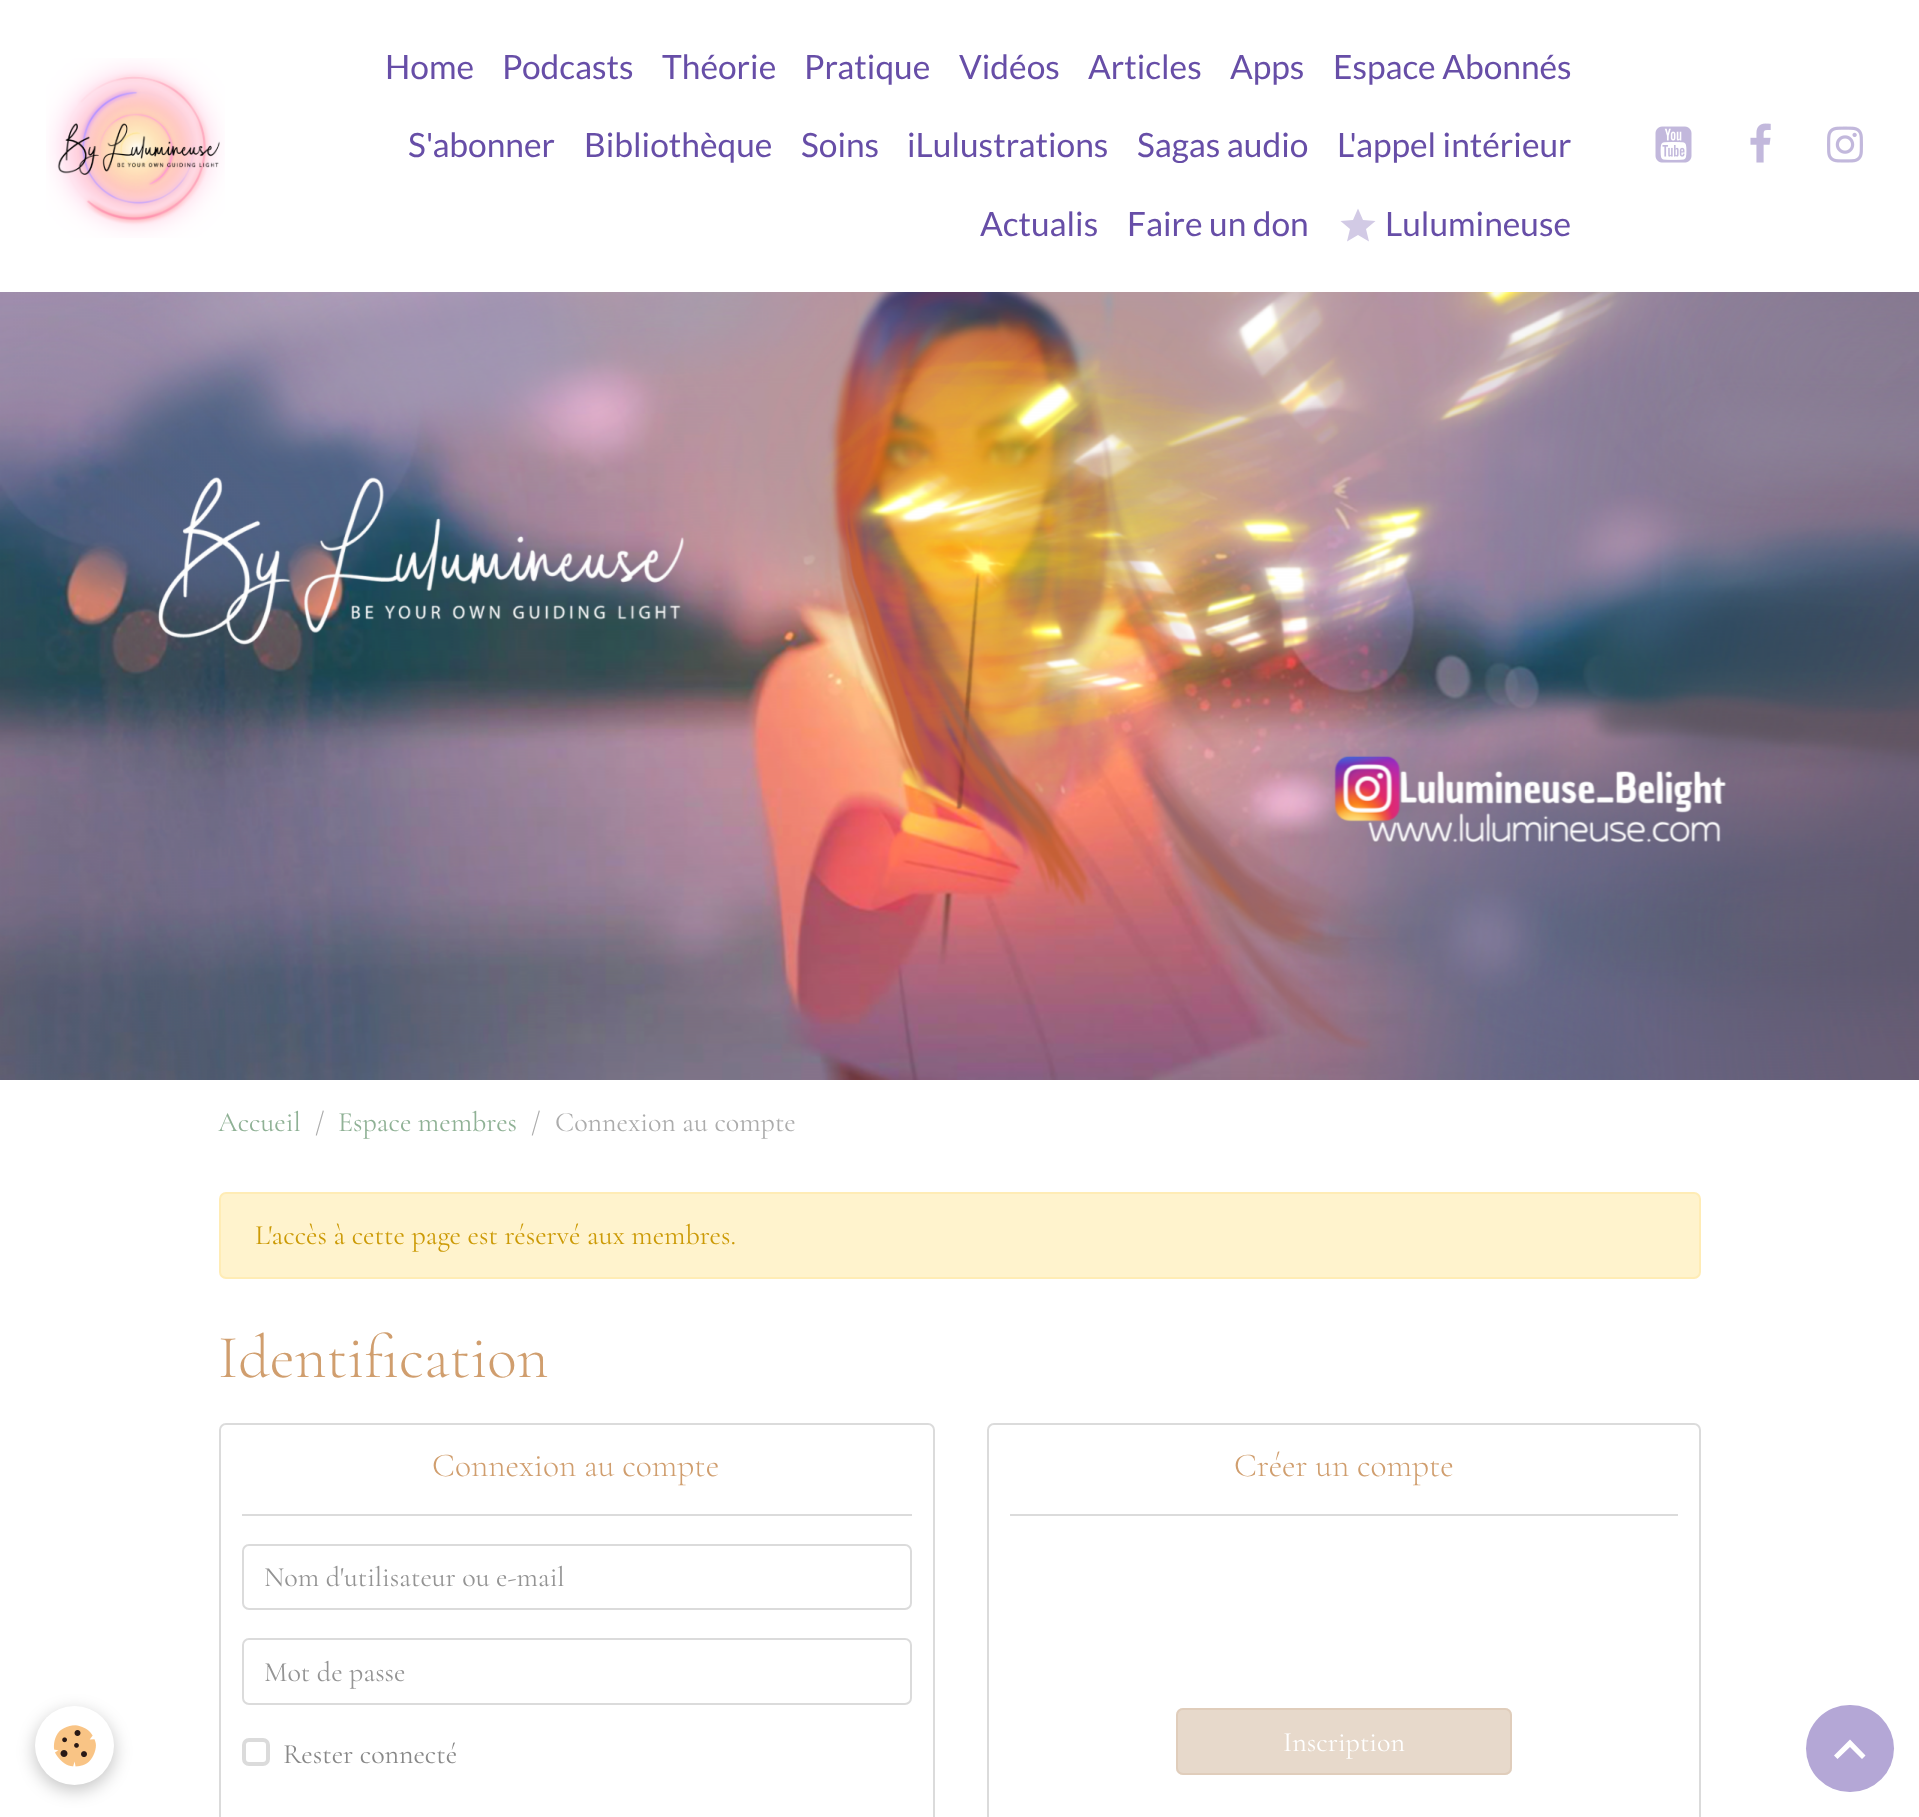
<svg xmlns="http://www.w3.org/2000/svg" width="1919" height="1817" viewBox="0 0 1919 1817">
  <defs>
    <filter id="blur1" x="-50%" y="-200%" width="200%" height="500%"><feGaussianBlur stdDeviation="9"/></filter>
  </defs>
  <rect width="100%" height="100%" fill="#ffffff"/>
  <image x="46" y="58" width="179" height="180" href="img1.png"/>
  <text x="385" y="79" font-family="Lato" font-size="33.5" fill="#674ea7">Home</text>
  <text x="502" y="79" font-family="Lato" font-size="33.5" fill="#674ea7">Podcasts</text>
  <text x="662" y="79" font-family="Lato" font-size="33.5" fill="#674ea7">Théorie</text>
  <text x="804" y="79" font-family="Lato" font-size="33.5" fill="#674ea7">Pratique</text>
  <text x="959" y="79" font-family="Lato" font-size="33.5" fill="#674ea7">Vidéos</text>
  <text x="1088" y="79" font-family="Lato" font-size="33.5" fill="#674ea7">Articles</text>
  <text x="1230" y="79" font-family="Lato" font-size="33.5" fill="#674ea7">Apps</text>
  <text x="1333" y="79" font-family="Lato" font-size="33.5" fill="#674ea7">Espace Abonnés</text>
  <text x="408" y="157" font-family="Lato" font-size="33.5" fill="#674ea7">S'abonner</text>
  <text x="584" y="157" font-family="Lato" font-size="33.5" fill="#674ea7">Bibliothèque</text>
  <text x="801" y="157" font-family="Lato" font-size="33.5" fill="#674ea7">Soins</text>
  <text x="907" y="157" font-family="Lato" font-size="33.5" fill="#674ea7">iLulustrations</text>
  <text x="1137" y="157" font-family="Lato" font-size="33.5" fill="#674ea7">Sagas audio</text>
  <text x="1337" y="157" font-family="Lato" font-size="33.5" fill="#674ea7">L'appel intérieur</text>
  <text x="980" y="236" font-family="Lato" font-size="33.5" fill="#674ea7">Actualis</text>
  <text x="1127" y="236" font-family="Lato" font-size="33.5" fill="#674ea7">Faire un don</text>
  <path d="M1358 235L1347 241.5L1350 229L1340.5 221L1353 220L1358 208.5L1363 220L1375.5 221L1366 229L1369 241.5Z" fill="#d2cae5"/>
  <text x="1385" y="236" font-family="Lato" font-size="33.5" fill="#674ea7">Lulumineuse</text>
  <image x="1655" y="126" width="37" height="37" href="img2.png"/>
  <image x="1750" y="123" width="21" height="40" href="img3.png"/>
  <image x="1827" y="126" width="36" height="37" href="img4.png"/>
  <image x="0" y="292" width="1919" height="788" href="img5.png"/>
  <rect x="35" y="1712" width="79" height="78" rx="39" fill="#000000" fill-opacity="0.24" filter="url(#blur1)"/>
  <circle cx="74.5" cy="1745.5" r="39.5" fill="#ffffff"/>
  <image x="53" y="1725" width="43" height="42" href="img6.png"/>
  <text x="218" y="1131" font-family="Cormorant Garamond" font-size="28" fill="#8fb195">Accueil</text>
  <text x="315" y="1131" font-family="Cormorant Garamond" font-size="28" fill="#acacac">/</text>
  <text x="338" y="1131" font-family="Cormorant Garamond" font-size="28" fill="#8fb195">Espace membres</text>
  <text x="531" y="1131" font-family="Cormorant Garamond" font-size="28" fill="#acacac">/</text>
  <text x="555" y="1131" font-family="Cormorant Garamond" font-size="28" fill="#acacac">Connexion au compte</text>
  <rect x="220" y="1193" width="1480" height="85" rx="6" fill="#fff3cd" stroke="#ffecb5" stroke-width="2"/>
  <text x="255" y="1244" font-family="Cormorant Garamond" font-size="28" fill="#cc9a06">L'accès à cette page est réservé aux membres.</text>
  <text x="218" y="1377" font-family="Cormorant Garamond" font-size="61.5" font-weight="300" fill="#d09e6e">Identification</text>
  <rect x="220" y="1424" width="714" height="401" rx="6" fill="none" stroke="#dbdbdb" stroke-width="2"/>
  <rect x="242" y="1514" width="670" height="2" fill="#dbdbdb"/>
  <text x="432" y="1476" font-family="Cormorant Garamond" font-size="33.5" font-weight="300" fill="#d09e6e">Connexion au compte</text>
  <rect x="243" y="1545" width="668" height="64" rx="6" fill="none" stroke="#dbdbdb" stroke-width="2"/>
  <text x="264" y="1586" font-family="Cormorant Garamond" font-size="28" fill="#949494">Nom d'utilisateur ou e-mail</text>
  <rect x="243" y="1639" width="668" height="65" rx="6" fill="none" stroke="#dbdbdb" stroke-width="2"/>
  <text x="264" y="1681" font-family="Cormorant Garamond" font-size="28" fill="#949494">Mot de passe</text>
  <rect x="244" y="1740" width="24" height="24" rx="5" fill="none" stroke="#dbdbdb" stroke-width="4"/>
  <text x="283" y="1763" font-family="Cormorant Garamond" font-size="28" fill="#888888">Rester connecté</text>
  <rect x="988" y="1424" width="712" height="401" rx="6" fill="none" stroke="#dbdbdb" stroke-width="2"/>
  <rect x="1010" y="1514" width="668" height="2" fill="#dbdbdb"/>
  <text x="1234" y="1476" font-family="Cormorant Garamond" font-size="33.5" font-weight="300" fill="#d09e6e">Créer un compte</text>
  <rect x="1176" y="1708" width="336" height="67" rx="7" fill="#e7d9cb"/>
  <rect x="1177" y="1709" width="334" height="65" rx="6" fill="none" stroke="#dcc8b4" stroke-opacity="0.69" stroke-width="2"/>
  <text x="1283" y="1751" font-family="Cormorant Garamond" font-size="28" fill="#ffffff">Inscription</text>
  <rect x="1806" y="1705" width="88" height="87" rx="43.5" fill="#b4a7d6"/>
  <path d="M1850 1739.5L1865.5 1755.5L1862 1759L1850 1747L1837.5 1759L1834 1755.5Z" fill="#ffffff"/>
</svg>
